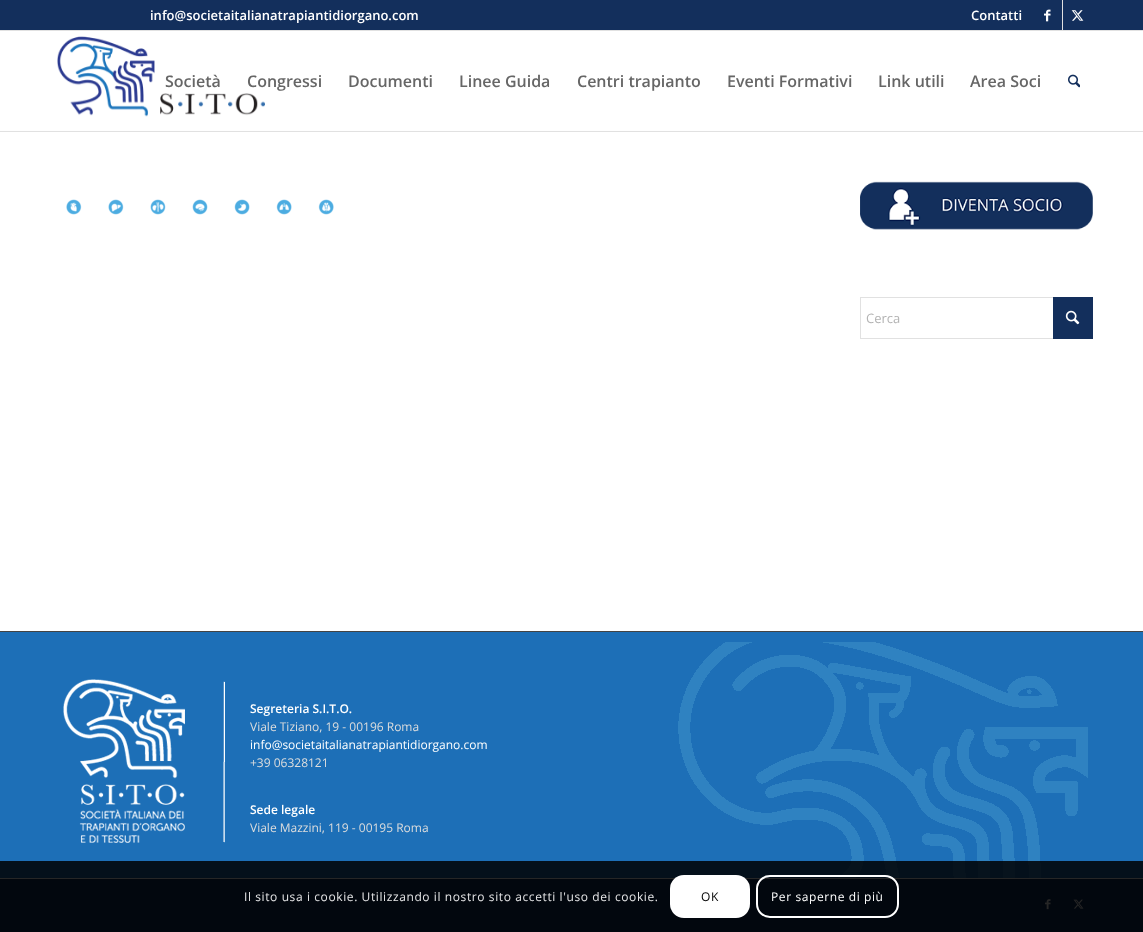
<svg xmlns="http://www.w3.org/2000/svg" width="1143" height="932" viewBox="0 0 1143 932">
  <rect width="100%" height="100%" fill="#132f5c"/>
  <rect x="0" y="132" width="1143" height="499" fill="#ffffff"/>
  <rect x="0" y="31" width="1143" height="99" fill="#ffffff"/>
  <rect x="0" y="30" width="1143" height="1" fill="#e1e1e1"/>
  <text x="150" y="20" font-family="Open Sans" font-size="13" font-weight="600" fill="#ffffff">info@societaitalianatrapiantidiorgano.com</text>
  <text x="971" y="20" font-family="Open Sans" font-size="13" font-weight="600" fill="#ffffff">Contatti</text>
  <rect x="1062" y="0" width="1" height="30" fill="#e1e1e1"/>
  <image x="1044" y="9" width="7" height="13" href="img1.png"/>
  <image x="1071" y="10" width="13" height="11" href="img2.png"/>
  <rect x="0" y="131" width="1143" height="1" fill="#e1e1e1"/>
  <image x="57" y="36" width="208" height="81" href="img3.png"/>
  <text x="165" y="87" font-family="Open Sans" font-size="16" font-weight="600" fill="#666666">Società</text>
  <text x="247" y="87" font-family="Open Sans" font-size="16" font-weight="600" fill="#666666">Congressi</text>
  <text x="348" y="87" font-family="Open Sans" font-size="16" font-weight="600" fill="#666666">Documenti</text>
  <text x="459" y="87" font-family="Open Sans" font-size="16" font-weight="600" fill="#666666">Linee Guida</text>
  <text x="577" y="87" font-family="Open Sans" font-size="16" font-weight="600" fill="#666666">Centri trapianto</text>
  <text x="727" y="87" font-family="Open Sans" font-size="16" font-weight="600" fill="#666666">Eventi Formativi</text>
  <text x="878" y="87" font-family="Open Sans" font-size="16" font-weight="600" fill="#666666">Link utili</text>
  <text x="970" y="87" font-family="Open Sans" font-size="16" font-weight="600" fill="#666666">Area Soci</text>
  <image x="1068" y="74" width="12" height="14" href="img4.png"/>
  <rect x="0" y="130" width="1143" height="1" fill="#fefefe"/>
  <image x="66" y="199" width="268" height="16" href="img5.png"/>
  <image x="860" y="181" width="233" height="49" href="img6.png"/>
  <rect x="860.5" y="297.5" width="232" height="41" fill="none" stroke="#e1e1e1"/>
  <rect x="1053" y="297" width="40" height="42" fill="#132f5c"/>
  <text x="866" y="323" font-family="Open Sans" font-size="13" fill="#b3b3b3">Cerca</text>
  <image x="1065" y="310" width="15" height="15" href="img7.png"/>
  <rect x="0" y="632" width="1143" height="246" fill="#1d6fb7"/>
  <image x="678" y="642" width="410" height="236" href="img8.png"/>
  <rect x="0" y="631" width="1143" height="1" fill="#444444"/>
  <image x="63" y="679" width="162" height="164" href="img9.png"/>
  <text x="250" y="713" font-family="Open Sans" font-size="12" font-weight="600" fill="#ffffff">Segreteria S.I.T.O.</text>
  <text x="250" y="731" font-family="Open Sans" font-size="12" fill="#dddddd">Viale Tiziano, 19 - 00196 Roma</text>
  <text x="250" y="749" font-family="Open Sans" font-size="12" fill="#ffffff">info@societaitalianatrapiantidiorgano.com</text>
  <text x="250" y="767" font-family="Open Sans" font-size="12" fill="#dddddd">+39 06328121</text>
  <text x="250" y="814" font-family="Open Sans" font-size="12" font-weight="600" fill="#ffffff">Sede legale</text>
  <text x="250" y="832" font-family="Open Sans" font-size="12" fill="#dddddd">Viale Mazzini, 119 - 00195 Roma</text>
  <rect x="0" y="878" width="1143" height="1" fill="#ffffff"/>
  <image x="1045" y="899" width="6" height="11" href="img10.png"/>
  <image x="1073" y="899" width="11" height="10" href="img11.png"/>
  <rect x="0" y="861" width="1143" height="71" fill="#000000" fill-opacity="0.85"/>
  <text x="244" y="901" font-family="Open Sans" font-size="12" letter-spacing="0.6" fill="#e6e6e7">Il sito usa i cookie. Utilizzando il nostro sito accetti l'uso dei cookie.</text>
  <rect x="670" y="875" width="80" height="43" rx="14" fill="#ffffff"/>
  <text x="701" y="901" font-family="Open Sans" font-size="12" letter-spacing="0.6" fill="#000000">OK</text>
  <rect x="757" y="876" width="141" height="41" rx="13" fill="none" stroke="#ffffff" stroke-width="2"/>
  <text x="771" y="901" font-family="Open Sans" font-size="12" letter-spacing="0.6" fill="#ffffff">Per saperne di più</text>
</svg>
